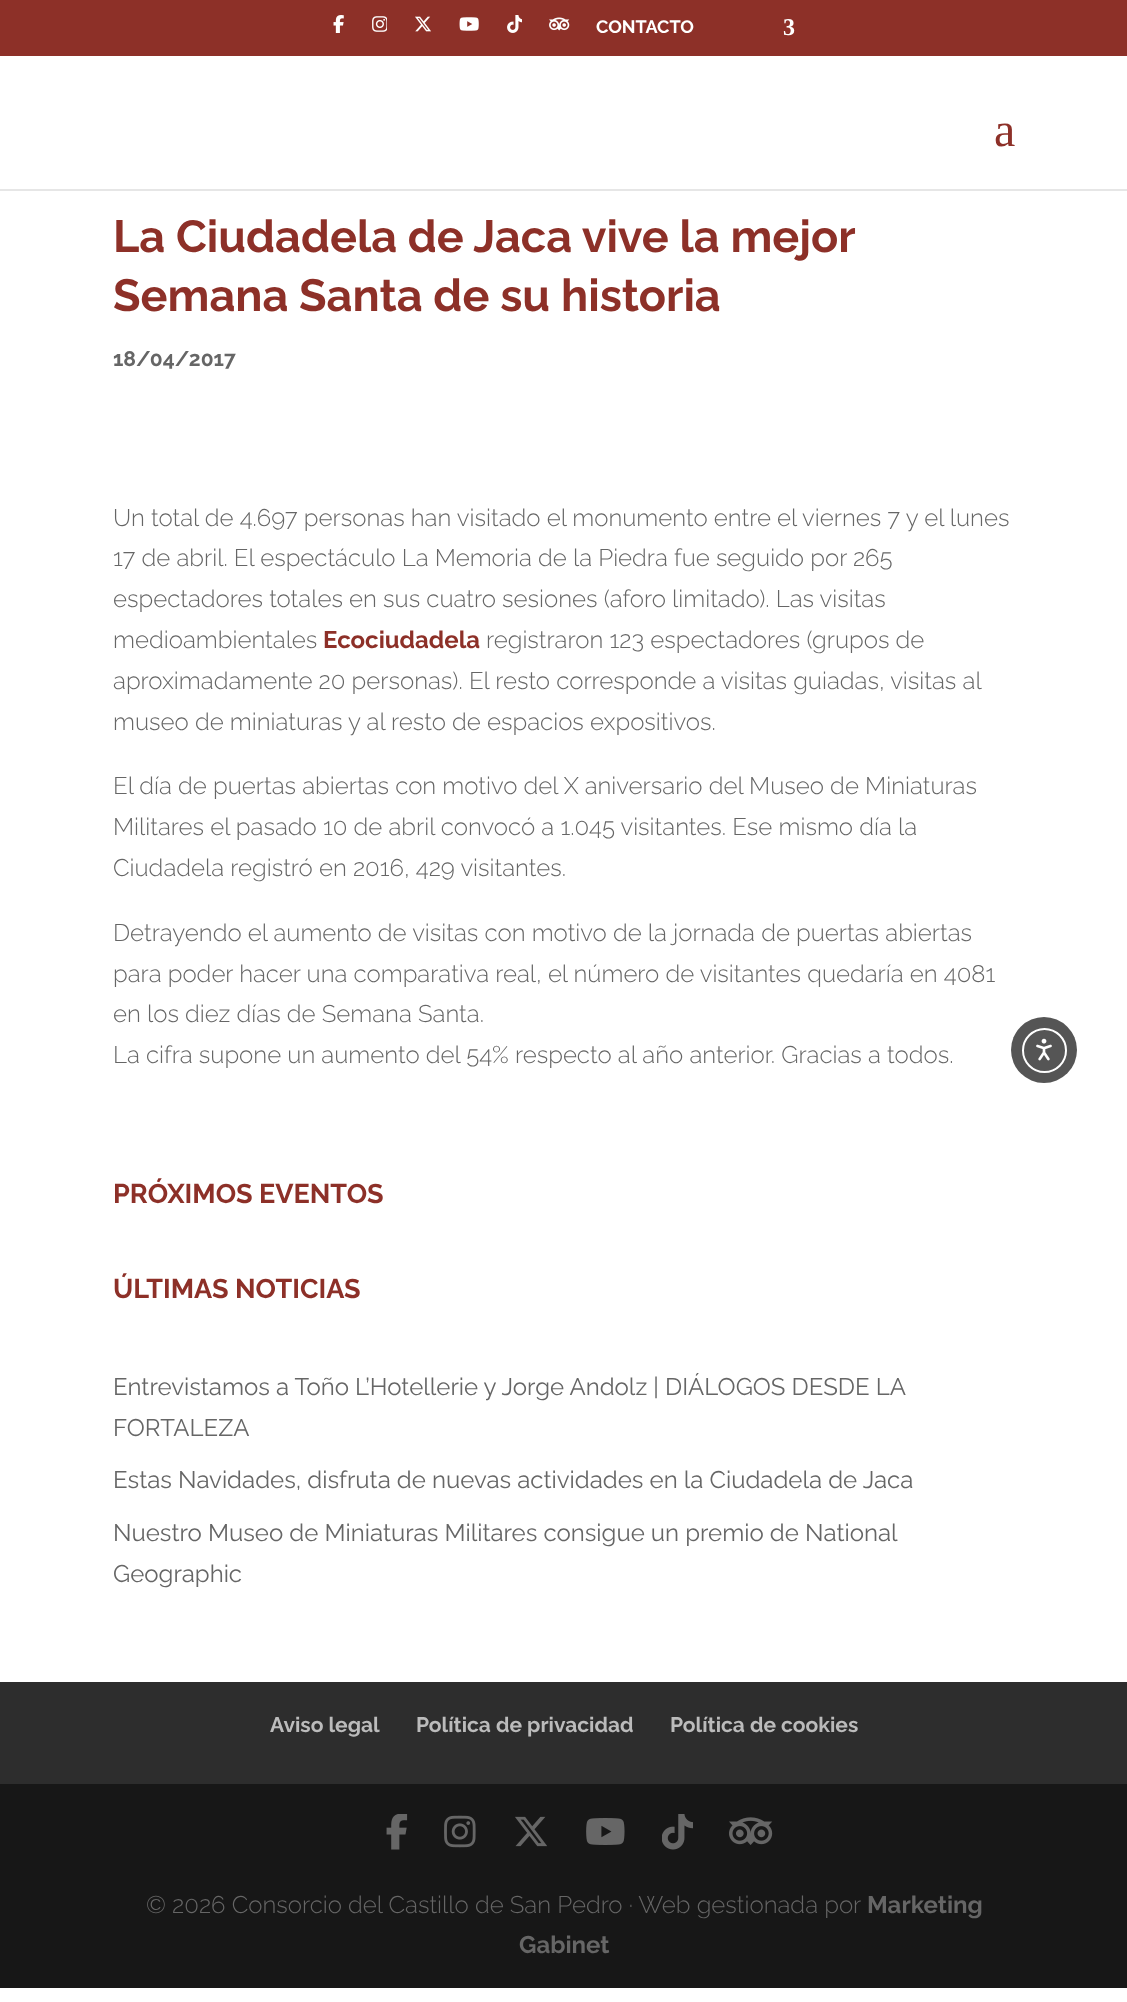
<svg xmlns="http://www.w3.org/2000/svg" width="1127" height="2002" viewBox="0 0 1127 2002">
  <rect width="100%" height="100%" fill="#ffffff"/>
  <rect x="0" y="0" width="1127" height="56" fill="#8d3028"/>
  <image x="333" y="15" width="11" height="18" href="img1.png"/>
  <image x="372" y="16" width="15" height="16" href="img2.png"/>
  <image x="415" y="16" width="16" height="16" href="img3.png"/>
  <image x="459" y="17" width="20" height="14" href="img4.png"/>
  <image x="507" y="15" width="15" height="18" href="img5.png"/>
  <image x="549" y="17" width="21" height="14" href="img6.png"/>
  <text x="596" y="33" font-family="Raleway" font-size="18" font-weight="100" fill="#ffffff">CONTACTO</text>
  <text x="783" y="35" font-family="Liberation Serif" font-size="24" font-weight="bold" fill="#ffffff">3</text>
  <rect x="0" y="189" width="1127" height="2" fill="#e6e6e6"/>
  <text x="994" y="146" font-family="Liberation Serif" font-size="48" fill="#8d3028">a</text>
  <text x="113" y="252" font-family="Raleway" font-size="45" font-weight="100" fill="#8d3028">La Ciudadela de Jaca vive la mejor</text>
  <text x="113" y="311" font-family="Raleway" font-size="45" font-weight="100" fill="#8d3028">Semana Santa de su historia</text>
  <text x="113" y="366" font-family="Raleway" font-size="21" font-weight="100" fill="#666666">18/04/2017</text>
  <text x="113" y="526" font-family="'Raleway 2'" font-size="24" font-weight="100" fill="#666666">Un total de 4.697 personas han visitado el monumento entre el viernes 7 y el lunes</text>
  <text x="113" y="566" font-family="'Raleway 2'" font-size="24" font-weight="100" fill="#666666">17 de abril. El espectáculo La Memoria de la Piedra fue seguido por 265</text>
  <text x="113" y="607" font-family="'Raleway 2'" font-size="24" font-weight="100" fill="#666666">espectadores totales en sus cuatro sesiones (aforo limitado). Las visitas</text>
  <text x="113" y="648" font-family="'Raleway 2'" font-size="24" font-weight="100" fill="#666666">medioambientales</text>
  <text x="323" y="648" font-family="Raleway" font-size="24" font-weight="100" fill="#8d3028">Ecociudadela</text>
  <text x="486" y="648" font-family="'Raleway 2'" font-size="24" font-weight="100" fill="#666666">registraron 123 espectadores (grupos de</text>
  <text x="113" y="689" font-family="'Raleway 2'" font-size="24" font-weight="100" fill="#666666">aproximadamente 20 personas). El resto corresponde a visitas guiadas, visitas al</text>
  <text x="113" y="730" font-family="'Raleway 2'" font-size="24" font-weight="100" fill="#666666">museo de miniaturas y al resto de espacios expositivos.</text>
  <text x="113" y="794" font-family="'Raleway 2'" font-size="24" font-weight="100" fill="#666666">El día de puertas abiertas con motivo del X aniversario del Museo de Miniaturas</text>
  <text x="113" y="835" font-family="'Raleway 2'" font-size="24" font-weight="100" fill="#666666">Militares el pasado 10 de abril convocó a 1.045 visitantes. Ese mismo día la</text>
  <text x="113" y="876" font-family="'Raleway 2'" font-size="24" font-weight="100" fill="#666666">Ciudadela registró en 2016, 429 visitantes.</text>
  <text x="113" y="941" font-family="'Raleway 2'" font-size="24" font-weight="100" fill="#666666">Detrayendo el aumento de visitas con motivo de la jornada de puertas abiertas</text>
  <text x="113" y="982" font-family="'Raleway 2'" font-size="24" font-weight="100" fill="#666666">para poder hacer una comparativa real, el número de visitantes quedaría en 4081</text>
  <text x="113" y="1022" font-family="'Raleway 2'" font-size="24" font-weight="100" fill="#666666">en los diez días de Semana Santa.</text>
  <text x="113" y="1063" font-family="'Raleway 2'" font-size="24" font-weight="100" fill="#666666">La cifra supone un aumento del 54% respecto al año anterior. Gracias a todos.</text>
  <text x="113" y="1203" font-family="Raleway" font-size="27" font-weight="100" fill="#8d3028">PRÓXIMOS EVENTOS</text>
  <text x="113" y="1298" font-family="Raleway" font-size="27" font-weight="100" fill="#8d3028">ÚLTIMAS NOTICIAS</text>
  <text x="113" y="1395" font-family="'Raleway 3'" font-size="24" font-weight="100" fill="#666666">Entrevistamos a Toño L’Hotellerie y Jorge Andolz | DIÁLOGOS DESDE LA</text>
  <text x="113" y="1436" font-family="'Raleway 3'" font-size="24" font-weight="100" fill="#666666">FORTALEZA</text>
  <text x="113" y="1488" font-family="'Raleway 3'" font-size="24" font-weight="100" fill="#666666">Estas Navidades, disfruta de nuevas actividades en la Ciudadela de Jaca</text>
  <text x="113" y="1541" font-family="'Raleway 3'" font-size="24" font-weight="100" fill="#666666">Nuestro Museo de Miniaturas Militares consigue un premio de National</text>
  <text x="113" y="1582" font-family="'Raleway 3'" font-size="24" font-weight="100" fill="#666666">Geographic</text>
  <rect x="0" y="1682" width="1127" height="102" fill="#2d2d2d"/>
  <text x="270" y="1732" font-family="Raleway" font-size="21" font-weight="100" fill="#bbbbbb">Aviso legal</text>
  <text x="416" y="1732" font-family="Raleway" font-size="21" font-weight="100" fill="#bbbbbb">Política de privacidad</text>
  <text x="670" y="1732" font-family="Raleway" font-size="21" font-weight="100" fill="#bbbbbb">Política de cookies</text>
  <rect x="0" y="1784" width="1127" height="204" fill="#171717"/>
  <image x="386" y="1814" width="22" height="36" href="img7.png"/>
  <image x="444" y="1815" width="32" height="33" href="img8.png"/>
  <image x="515" y="1816" width="32" height="31" href="img9.png"/>
  <image x="586" y="1818" width="39" height="27" href="img10.png"/>
  <image x="662" y="1814" width="31" height="36" href="img11.png"/>
  <image x="729" y="1817" width="44" height="28" href="img12.png"/>
  <text x="146" y="1913" font-family="'Raleway 2'" font-size="24" font-weight="100" fill="#666666">© 2026 Consorcio del Castillo de San Pedro · Web gestionada por</text>
  <text x="867" y="1913" font-family="Raleway" font-size="24" font-weight="100" fill="#666666">Marketing</text>
  <text x="519" y="1953" font-family="Raleway" font-size="24" font-weight="100" fill="#666666">Gabinet</text>
  <circle cx="1044" cy="1050" r="33" fill="#555555"/>
  <circle cx="1044.5" cy="1050.5" r="21.5" fill="none" stroke="#ffffff" stroke-width="2"/>
  <image x="1036" y="1038" width="16" height="23" href="img13.png"/>
</svg>
